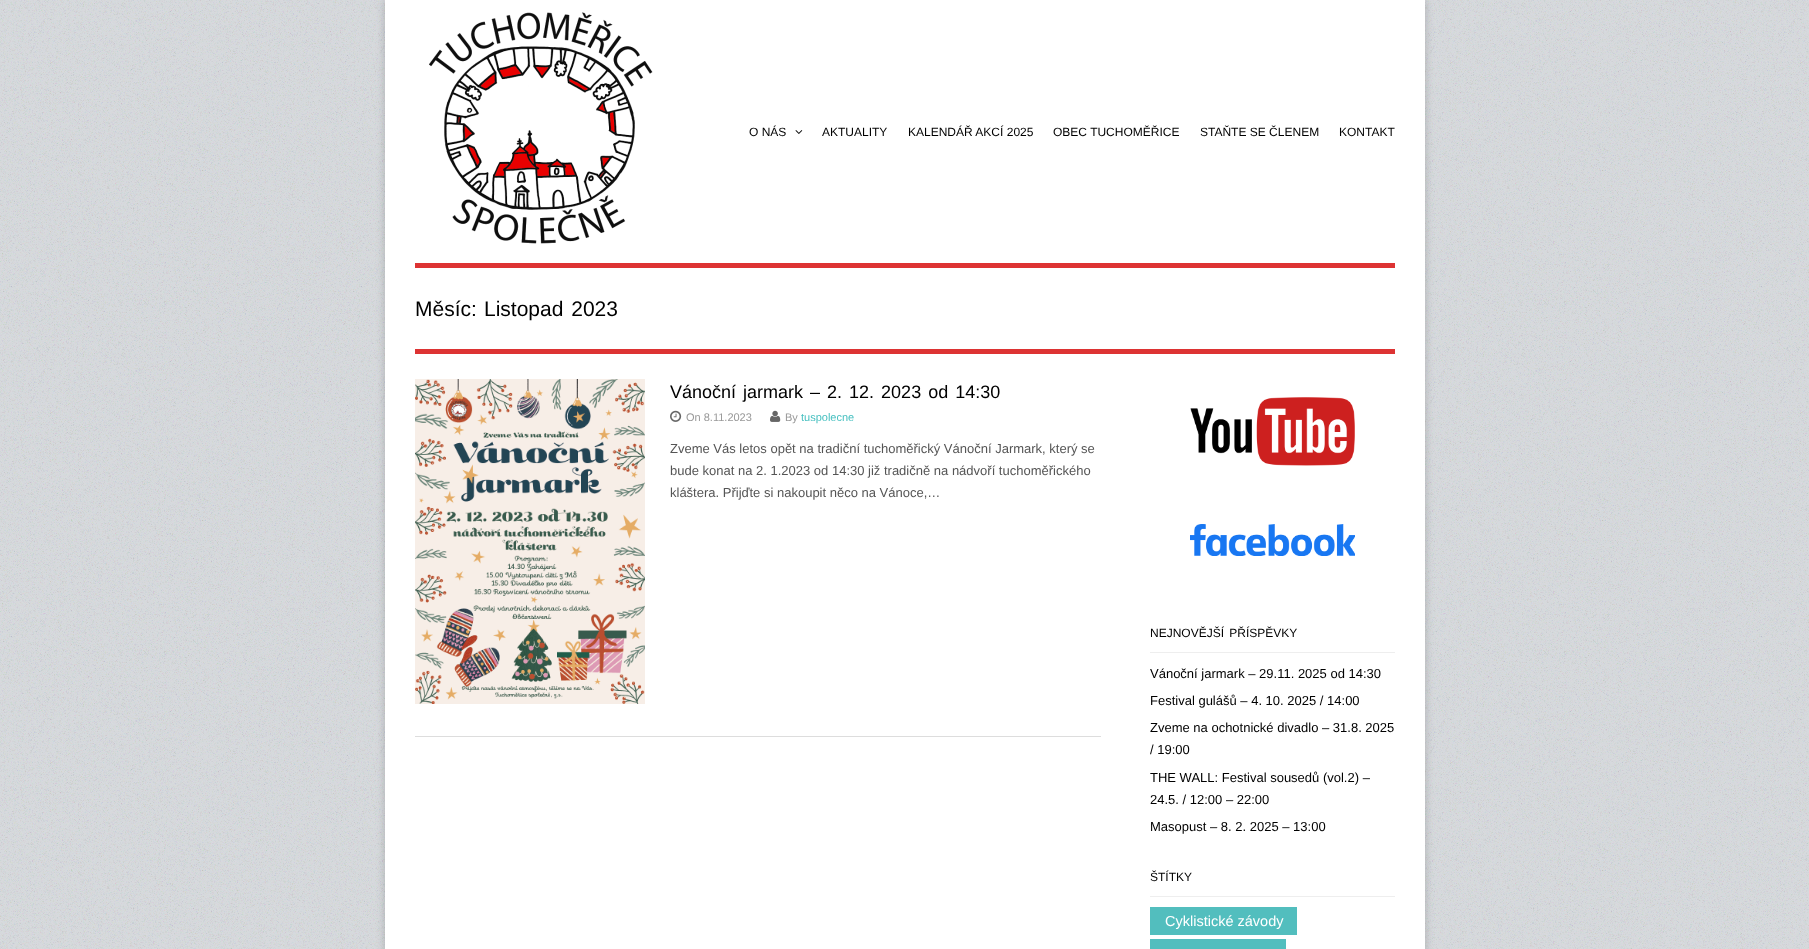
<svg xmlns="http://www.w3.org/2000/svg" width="1809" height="949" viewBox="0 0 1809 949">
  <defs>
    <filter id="blur1" x="-50%" y="-200%" width="200%" height="500%"><feGaussianBlur stdDeviation="5"/></filter>
  </defs>
  <rect width="100%" height="100%" fill="#ffffff"/>
  <image x="0" y="0" width="1809" height="949" href="img1.png"/>
  <rect x="385" y="0" width="1040" height="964" fill="#000000" fill-opacity="0.2" filter="url(#blur1)"/>
  <rect x="385" y="0" width="1040" height="949" fill="#ffffff"/>
  <rect x="415" y="263" width="980" height="5" fill="#dd3333"/>
  <image x="429" y="12" width="224" height="232" href="img2.png"/>
  <text x="749" y="136" font-family="Liberation Sans" font-size="12" fill="#000000">O NÁS</text>
  <image x="795" y="130" width="8" height="4" href="img3.png"/>
  <text x="822" y="136" font-family="Liberation Sans" font-size="12" fill="#000000">AKTUALITY</text>
  <text x="908" y="136" font-family="Liberation Sans" font-size="12" fill="#000000">KALENDÁŘ AKCÍ 2025</text>
  <text x="1053" y="136" font-family="Liberation Sans" font-size="12" fill="#000000">OBEC TUCHOMĚŘICE</text>
  <text x="1200" y="136" font-family="Liberation Sans" font-size="12" fill="#000000">STAŇTE SE ČLENEM</text>
  <text x="1339" y="136" font-family="Liberation Sans" font-size="12" fill="#000000">KONTAKT</text>
  <rect x="415" y="349" width="980" height="5" fill="#dd3333"/>
  <text x="415" y="316" font-family="Liberation Sans" font-size="21" fill="#000000">Měsíc:</text>
  <text x="484" y="316" word-spacing="2" font-family="Liberation Sans" font-size="21" fill="#000000">Listopad 2023</text>
  <rect x="415" y="736" width="686" height="1" fill="#dddddd"/>
  <image x="415" y="379" width="230" height="325" href="img4.png"/>
  <text x="670" y="398" word-spacing="2" font-family="Liberation Sans" font-size="18" fill="#000000">Vánoční jarmark – 2. 12. 2023 od 14:30</text>
  <image x="670" y="410" width="12" height="12" href="img5.png"/>
  <text x="686" y="421" font-family="Liberation Sans" font-size="11" fill="#999999">On 8.11.2023</text>
  <image x="770" y="410" width="11" height="12" href="img6.png"/>
  <text x="785" y="421" font-family="Liberation Sans" font-size="11" fill="#999999">By</text>
  <text x="801" y="421" font-family="Liberation Sans" font-size="11" fill="#47c0c0">tuspolecne</text>
  <text x="670" y="453" font-family="Liberation Sans" font-size="13" fill="#555555">Zveme Vás letos opět na tradiční tuchoměřický Vánoční Jarmark, který se</text>
  <text x="670" y="475" font-family="Liberation Sans" font-size="13" fill="#555555">bude konat na 2. 1.2023 od 14:30 již tradičně na nádvoří tuchoměřického</text>
  <text x="670" y="497" font-family="Liberation Sans" font-size="13" fill="#555555">kláštera. Přijďte si nakoupit něco na Vánoce,…</text>
  <image x="1190" y="397" width="165" height="69" href="img7.png"/>
  <image x="1190" y="524" width="165" height="32" href="img8.png"/>
  <rect x="1150" y="652" width="245" height="1" fill="#eeeeee"/>
  <text x="1150" y="637" word-spacing="2" font-family="Liberation Sans" font-size="12" fill="#000000">NEJNOVĚJŠÍ PŘÍSPĚVKY</text>
  <text x="1150" y="678" font-family="Liberation Sans" font-size="13" fill="#000000">Vánoční jarmark – 29.11. 2025 od 14:30</text>
  <text x="1150" y="705" font-family="Liberation Sans" font-size="13" fill="#000000">Festival gulášů – 4. 10. 2025 / 14:00</text>
  <text x="1150" y="732" font-family="Liberation Sans" font-size="13" fill="#000000">Zveme na ochotnické divadlo – 31.8. 2025</text>
  <text x="1150" y="754" font-family="Liberation Sans" font-size="13" fill="#000000">/ 19:00</text>
  <text x="1150" y="782" font-family="Liberation Sans" font-size="13" fill="#000000">THE WALL: Festival sousedů (vol.2) –</text>
  <text x="1150" y="804" font-family="Liberation Sans" font-size="13" fill="#000000">24.5. / 12:00 – 22:00</text>
  <text x="1150" y="831" font-family="Liberation Sans" font-size="13" fill="#000000">Masopust – 8. 2. 2025 – 13:00</text>
  <rect x="1150" y="896" width="245" height="1" fill="#eeeeee"/>
  <text x="1150" y="881" font-family="Liberation Sans" font-size="12" fill="#000000">ŠTÍTKY</text>
  <rect x="1150" y="907" width="147" height="28" fill="#52bebe"/>
  <text x="1165" y="926" font-family="Liberation Sans" font-size="14.5" fill="#ffffff">Cyklistické závody</text>
  <rect x="1150" y="939" width="136" height="10" fill="#52bebe"/>
</svg>
